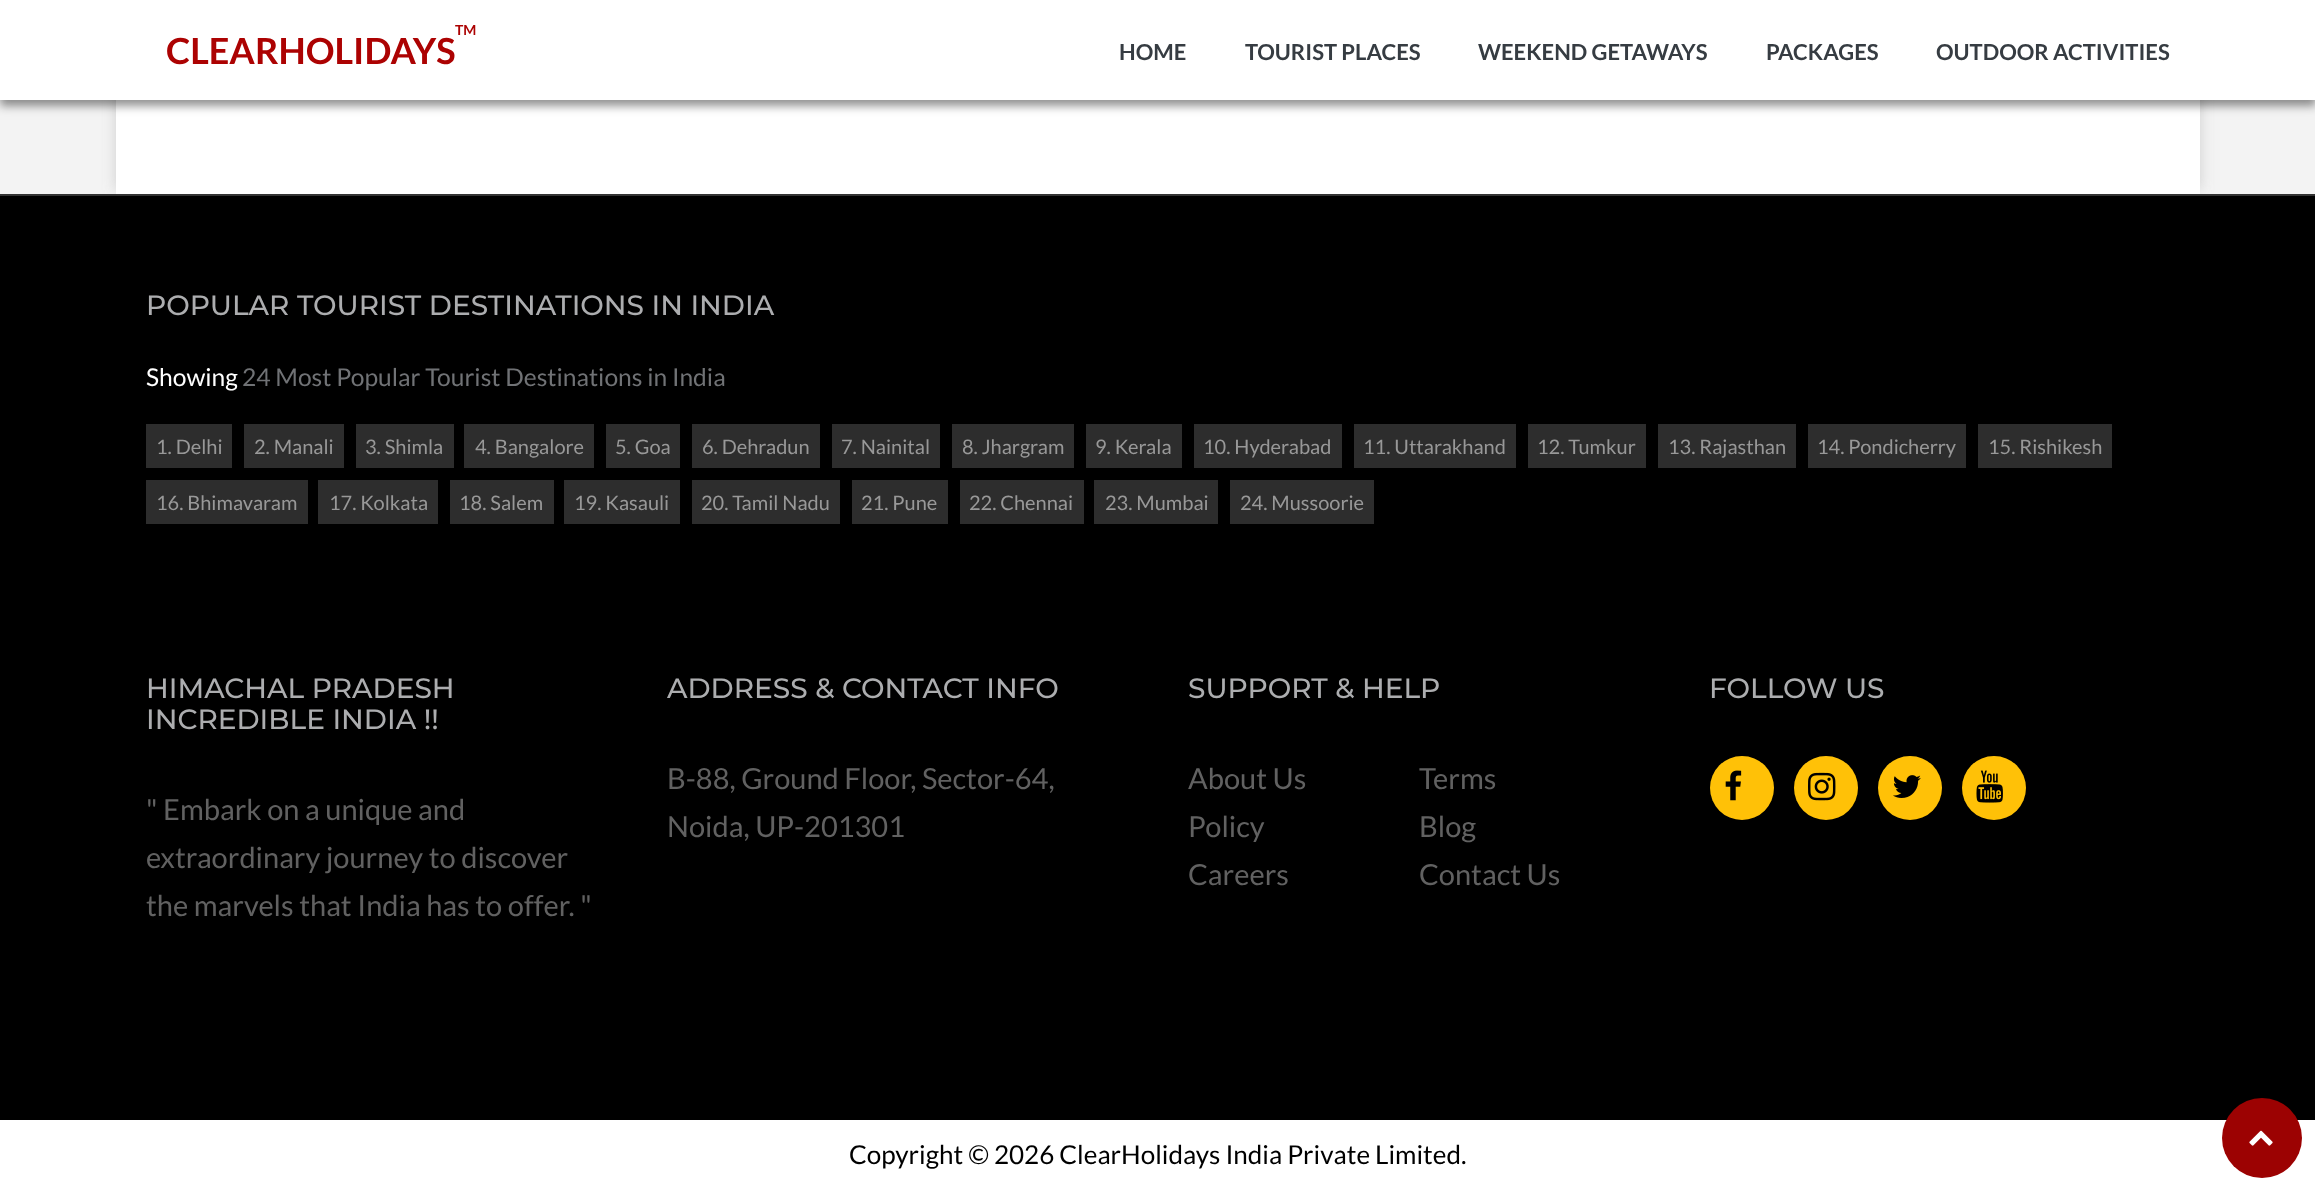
<svg xmlns="http://www.w3.org/2000/svg" width="2315" height="1187" viewBox="0 0 2315 1187">
  <defs>
    <clipPath id="clip1"><rect x="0" y="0" width="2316" height="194"/></clipPath>
    <filter id="blur1" x="-50%" y="-200%" width="200%" height="500%"><feGaussianBlur stdDeviation="7"/></filter>
    <filter id="blur2" x="-50%" y="-200%" width="200%" height="500%"><feGaussianBlur stdDeviation="5"/></filter>
  </defs>
  <rect width="100%" height="100%" fill="#ffffff"/>
  <rect x="0" y="100" width="2315" height="94" fill="#f3f3f3"/>
  <rect x="0" y="196" width="2315" height="924" fill="#000000"/>
  <rect x="0" y="194" width="2315" height="2" fill="#333333"/>
  <g clip-path="url(#clip1)">
    <rect x="116" y="-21" width="2084" height="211" fill="#969696" fill-opacity="0.4" filter="url(#blur1)"/>
  </g>
  <rect x="116" y="100" width="2084" height="94" fill="#ffffff"/>
  <rect x="0" y="6" width="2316" height="100" fill="#000000" fill-opacity="0.43" filter="url(#blur2)"/>
  <rect x="0" y="0" width="2315" height="100" fill="#ffffff"/>
  <text x="455" y="35" font-family="Lato" font-size="14" font-weight="bold" fill="#ac0202">TM</text>
  <text x="166" y="64" font-family="Lato" font-size="36" font-weight="bold" fill="#ac0202">CLEARHOLIDAYS</text>
  <text x="1119" y="60" font-family="Lato" font-size="22" font-weight="bold" fill="#363c42">HOME</text>
  <text x="1245" y="60" font-family="Lato" font-size="22" font-weight="bold" fill="#363c42">TOURIST PLACES</text>
  <text x="1478" y="60" font-family="Lato" font-size="22" font-weight="bold" fill="#363c42">WEEKEND GETAWAYS</text>
  <text x="1766" y="60" font-family="Lato" font-size="22" font-weight="bold" fill="#363c42">PACKAGES</text>
  <text x="1936" y="60" font-family="Lato" font-size="22" font-weight="bold" fill="#363c42">OUTDOOR ACTIVITIES</text>
  <text x="146" y="315" font-family="Montserrat" font-size="28" font-weight="500" fill="#acadaf">POPULAR TOURIST DESTINATIONS IN INDIA</text>
  <text x="146" y="386" font-family="Lato" font-size="24.6" fill="#ffffff">Showing</text>
  <text x="242" y="386" font-family="Lato" font-size="24.6" fill="#707275">24 Most Popular Tourist Destinations in India</text>
  <rect x="146" y="424" width="86" height="44" fill="#2d2d2d"/>
  <text x="156" y="454" font-family="Lato" font-size="20" fill="#989898">1. Delhi</text>
  <rect x="244" y="424" width="100" height="44" fill="#2d2d2d"/>
  <text x="254" y="454" font-family="Lato" font-size="20" fill="#989898">2. Manali</text>
  <rect x="356" y="424" width="98" height="44" fill="#2d2d2d"/>
  <text x="365" y="454" font-family="Lato" font-size="20" fill="#989898">3. Shimla</text>
  <rect x="464" y="424" width="130" height="44" fill="#2d2d2d"/>
  <text x="475" y="454" font-family="Lato" font-size="20" fill="#989898">4. Bangalore</text>
  <rect x="606" y="424" width="74" height="44" fill="#2d2d2d"/>
  <text x="615" y="454" font-family="Lato" font-size="20" fill="#989898">5. Goa</text>
  <rect x="692" y="424" width="128" height="44" fill="#2d2d2d"/>
  <text x="702" y="454" font-family="Lato" font-size="20" fill="#989898">6. Dehradun</text>
  <rect x="832" y="424" width="108" height="44" fill="#2d2d2d"/>
  <text x="841" y="454" font-family="Lato" font-size="20" fill="#989898">7. Nainital</text>
  <rect x="952" y="424" width="122" height="44" fill="#2d2d2d"/>
  <text x="962" y="454" font-family="Lato" font-size="20" fill="#989898">8. Jhargram</text>
  <rect x="1086" y="424" width="96" height="44" fill="#2d2d2d"/>
  <text x="1095" y="454" font-family="Lato" font-size="20" fill="#989898">9. Kerala</text>
  <rect x="1194" y="424" width="148" height="44" fill="#2d2d2d"/>
  <text x="1203" y="454" font-family="Lato" font-size="20" fill="#989898">10. Hyderabad</text>
  <rect x="1354" y="424" width="162" height="44" fill="#2d2d2d"/>
  <text x="1363" y="454" font-family="Lato" font-size="20" fill="#989898">11. Uttarakhand</text>
  <rect x="1528" y="424" width="118" height="44" fill="#2d2d2d"/>
  <text x="1537" y="454" font-family="Lato" font-size="20" fill="#989898">12. Tumkur</text>
  <rect x="1658" y="424" width="138" height="44" fill="#2d2d2d"/>
  <text x="1668" y="454" font-family="Lato" font-size="20" fill="#989898">13. Rajasthan</text>
  <rect x="1808" y="424" width="158" height="44" fill="#2d2d2d"/>
  <text x="1817" y="454" font-family="Lato" font-size="20" fill="#989898">14. Pondicherry</text>
  <rect x="1978" y="424" width="134" height="44" fill="#2d2d2d"/>
  <text x="1988" y="454" font-family="Lato" font-size="20" fill="#989898">15. Rishikesh</text>
  <rect x="146" y="480" width="162" height="44" fill="#2d2d2d"/>
  <text x="156" y="510" font-family="Lato" font-size="20" fill="#989898">16. Bhimavaram</text>
  <rect x="318" y="480" width="120" height="44" fill="#2d2d2d"/>
  <text x="329" y="510" font-family="Lato" font-size="20" fill="#989898">17. Kolkata</text>
  <rect x="450" y="480" width="104" height="44" fill="#2d2d2d"/>
  <text x="459" y="510" font-family="Lato" font-size="20" fill="#989898">18. Salem</text>
  <rect x="564" y="480" width="116" height="44" fill="#2d2d2d"/>
  <text x="574" y="510" font-family="Lato" font-size="20" fill="#989898">19. Kasauli</text>
  <rect x="692" y="480" width="148" height="44" fill="#2d2d2d"/>
  <text x="701" y="510" font-family="Lato" font-size="20" fill="#989898">20. Tamil Nadu</text>
  <rect x="852" y="480" width="96" height="44" fill="#2d2d2d"/>
  <text x="861" y="510" font-family="Lato" font-size="20" fill="#989898">21. Pune</text>
  <rect x="960" y="480" width="124" height="44" fill="#2d2d2d"/>
  <text x="969" y="510" font-family="Lato" font-size="20" fill="#989898">22. Chennai</text>
  <rect x="1094" y="480" width="124" height="44" fill="#2d2d2d"/>
  <text x="1105" y="510" font-family="Lato" font-size="20" fill="#989898">23. Mumbai</text>
  <rect x="1230" y="480" width="144" height="44" fill="#2d2d2d"/>
  <text x="1240" y="510" font-family="Lato" font-size="20" fill="#989898">24. Mussoorie</text>
  <text x="146" y="698" font-family="Montserrat" font-size="28" font-weight="500" fill="#acadaf">HIMACHAL PRADESH</text>
  <text x="146" y="729" font-family="Montserrat" font-size="28" font-weight="500" fill="#acadaf">INCREDIBLE INDIA !!</text>
  <text x="146" y="820" font-family="Lato" font-size="29" fill="#616161">" Embark on a unique and</text>
  <text x="146" y="868" font-family="Lato" font-size="29" fill="#616161">extraordinary journey to discover</text>
  <text x="146" y="916" font-family="Lato" font-size="29" fill="#616161">the marvels that India has to offer. "</text>
  <text x="667" y="698" font-family="Montserrat" font-size="28" font-weight="500" fill="#acadaf">ADDRESS &amp; CONTACT INFO</text>
  <text x="667" y="789" font-family="Lato" font-size="29" fill="#616161">B-88, Ground Floor, Sector-64,</text>
  <text x="667" y="837" font-family="Lato" font-size="29" fill="#616161">Noida, UP-201301</text>
  <text x="1188" y="698" font-family="Montserrat" font-size="28" font-weight="500" fill="#acadaf">SUPPORT &amp; HELP</text>
  <text x="1188" y="789" font-family="Lato" font-size="29" fill="#616161">About Us</text>
  <text x="1419" y="789" font-family="Lato" font-size="29" fill="#616161">Terms</text>
  <text x="1188" y="837" font-family="Lato" font-size="29" fill="#616161">Policy</text>
  <text x="1419" y="837" font-family="Lato" font-size="29" fill="#616161">Blog</text>
  <text x="1188" y="885" font-family="Lato" font-size="29" fill="#616161">Careers</text>
  <text x="1419" y="885" font-family="Lato" font-size="29" fill="#616161">Contact Us</text>
  <text x="1709" y="698" font-family="Montserrat" font-size="28" font-weight="500" fill="#acadaf">FOLLOW US</text>
  <circle cx="1742" cy="788" r="32" fill="#ffc107"/>
  <image x="1725" y="770" width="17" height="31" href="img1.png"/>
  <circle cx="1826" cy="788" r="32" fill="#ffc107"/>
  <image x="1808" y="772" width="28" height="29" href="img2.png"/>
  <circle cx="1910" cy="788" r="32" fill="#ffc107"/>
  <image x="1893" y="775" width="28" height="23" href="img3.png"/>
  <circle cx="1994" cy="788" r="32" fill="#ffc107"/>
  <image x="1976" y="770" width="27" height="33" href="img4.png"/>
  <text x="849" y="1164" font-family="Lato" font-size="26" fill="#000000">Copyright © 2026 ClearHolidays India Private Limited.</text>
  <circle cx="2262" cy="1138" r="40" fill="#9c0202"/>
  <image x="2249" y="1130" width="24" height="16" href="img5.png"/>
</svg>
